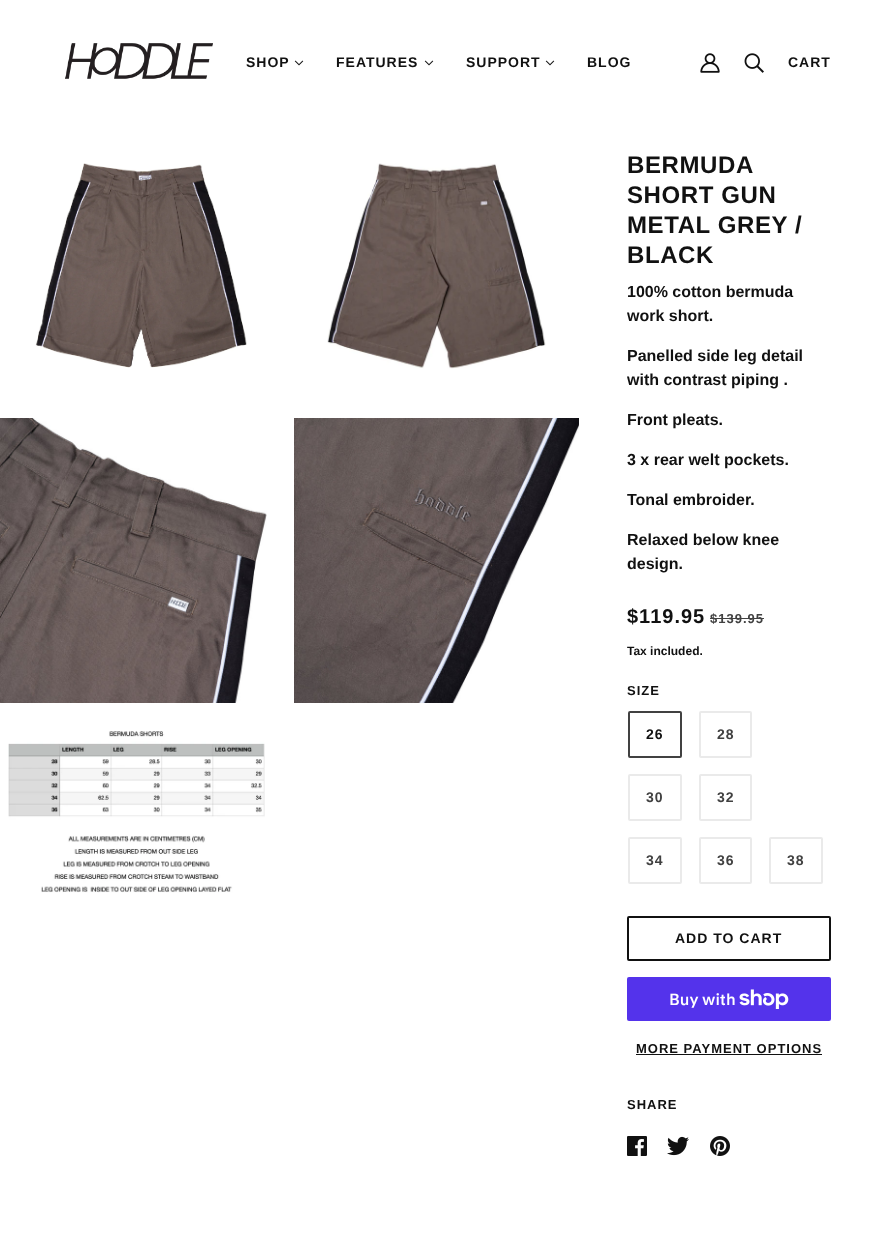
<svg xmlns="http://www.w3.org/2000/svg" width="879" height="1240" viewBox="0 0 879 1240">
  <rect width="100%" height="100%" fill="#ffffff"/>
  <image x="65" y="43" width="148" height="36" href="img1.png"/>
  <text x="246" y="67" font-family="Liberation Sans" font-size="14" font-weight="bold" letter-spacing="1" fill="#111111">SHOP</text>
  <image x="294" y="60" width="10" height="6" href="img2.png"/>
  <text x="336" y="67" font-family="Liberation Sans" font-size="14" font-weight="bold" letter-spacing="1" fill="#111111">FEATURES</text>
  <image x="424" y="60" width="10" height="6" href="img2.png"/>
  <text x="466" y="67" font-family="Liberation Sans" font-size="14" font-weight="bold" letter-spacing="1" fill="#111111">SUPPORT</text>
  <image x="545" y="60" width="10" height="6" href="img2.png"/>
  <text x="587" y="67" font-family="Liberation Sans" font-size="14" font-weight="bold" letter-spacing="1" fill="#111111">BLOG</text>
  <image x="700" y="53" width="20" height="20" href="img3.png"/>
  <image x="744" y="53" width="20" height="20" href="img4.png"/>
  <text x="788" y="67" font-family="Liberation Sans" font-size="14" font-weight="bold" letter-spacing="1" fill="#111111">CART</text>
  <image x="35" y="163" width="212" height="205" href="img5.png"/>
  <image x="327" y="163" width="219" height="206" href="img6.png"/>
  <image x="0" y="418" width="267" height="285" href="img7.png"/>
  <image x="294" y="418" width="285" height="285" href="img8.png"/>
  <image x="8" y="731" width="257" height="162" href="img9.png"/>
  <text x="627" y="173" font-family="Liberation Sans" font-size="24" font-weight="bold" letter-spacing="0.6" fill="#111111">BERMUDA</text>
  <text x="627" y="203" font-family="Liberation Sans" font-size="24" font-weight="bold" letter-spacing="0.6" fill="#111111">SHORT GUN</text>
  <text x="627" y="233" font-family="Liberation Sans" font-size="24" font-weight="bold" letter-spacing="0.6" fill="#111111">METAL GREY /</text>
  <text x="627" y="263" font-family="Liberation Sans" font-size="24" font-weight="bold" letter-spacing="0.6" fill="#111111">BLACK</text>
  <text x="627" y="297" font-family="Liberation Sans" font-size="16" font-weight="bold" fill="#111111">100% cotton bermuda</text>
  <text x="627" y="321" font-family="Liberation Sans" font-size="16" font-weight="bold" fill="#111111">work short.</text>
  <text x="627" y="361" font-family="Liberation Sans" font-size="16" font-weight="bold" fill="#111111">Panelled side leg detail</text>
  <text x="627" y="385" font-family="Liberation Sans" font-size="16" font-weight="bold" fill="#111111">with contrast piping .</text>
  <text x="627" y="425" font-family="Liberation Sans" font-size="16" font-weight="bold" fill="#111111">Front pleats.</text>
  <text x="627" y="465" font-family="Liberation Sans" font-size="16" font-weight="bold" fill="#111111">3 x rear welt pockets.</text>
  <text x="627" y="505" font-family="Liberation Sans" font-size="16" font-weight="bold" fill="#111111">Tonal embroider.</text>
  <text x="627" y="545" font-family="Liberation Sans" font-size="16" font-weight="bold" fill="#111111">Relaxed below knee</text>
  <text x="627" y="569" font-family="Liberation Sans" font-size="16" font-weight="bold" fill="#111111">design.</text>
  <text x="627" y="623" font-family="Liberation Sans" font-size="20" font-weight="bold" letter-spacing="1" fill="#111111">$119.95</text>
  <text x="710" y="623" font-family="Liberation Sans" font-size="13" font-weight="bold" letter-spacing="1" fill="#414141">$139.95</text>
  <rect x="710" y="618" width="54" height="1" fill="#414141"/>
  <text x="627" y="655" font-family="Liberation Sans" font-size="12" font-weight="bold" fill="#111111">Tax included.</text>
  <text x="627" y="695" font-family="Liberation Sans" font-size="13" font-weight="bold" letter-spacing="1" fill="#111111">SIZE</text>
  <rect x="629" y="712" width="52" height="45" rx="1" fill="none" stroke="#414141" stroke-width="2"/>
  <text x="646" y="739" font-family="Liberation Sans" font-size="14" font-weight="bold" letter-spacing="1" fill="#111111">26</text>
  <rect x="700" y="712" width="51" height="45" rx="1" fill="none" stroke="#eaeaea" stroke-width="2"/>
  <text x="717" y="739" font-family="Liberation Sans" font-size="14" font-weight="bold" letter-spacing="1" fill="#414141">28</text>
  <rect x="629" y="775" width="52" height="45" rx="1" fill="none" stroke="#eaeaea" stroke-width="2"/>
  <text x="646" y="802" font-family="Liberation Sans" font-size="14" font-weight="bold" letter-spacing="1" fill="#414141">30</text>
  <rect x="700" y="775" width="51" height="45" rx="1" fill="none" stroke="#eaeaea" stroke-width="2"/>
  <text x="717" y="802" font-family="Liberation Sans" font-size="14" font-weight="bold" letter-spacing="1" fill="#414141">32</text>
  <rect x="629" y="838" width="52" height="45" rx="1" fill="none" stroke="#eaeaea" stroke-width="2"/>
  <text x="646" y="865" font-family="Liberation Sans" font-size="14" font-weight="bold" letter-spacing="1" fill="#414141">34</text>
  <rect x="700" y="838" width="51" height="45" rx="1" fill="none" stroke="#eaeaea" stroke-width="2"/>
  <text x="717" y="865" font-family="Liberation Sans" font-size="14" font-weight="bold" letter-spacing="1" fill="#414141">36</text>
  <rect x="770" y="838" width="52" height="45" rx="1" fill="none" stroke="#eaeaea" stroke-width="2"/>
  <text x="787" y="865" font-family="Liberation Sans" font-size="14" font-weight="bold" letter-spacing="1" fill="#414141">38</text>
  <rect x="628" y="917" width="202" height="43" rx="1" fill="none" stroke="#111111" stroke-width="2"/>
  <text x="675" y="943" font-family="Liberation Sans" font-size="14" font-weight="bold" letter-spacing="1" fill="#111111">ADD TO CART</text>
  <rect x="627" y="977" width="204" height="44" rx="2" fill="#5433eb"/>
  <text x="669" y="1005" font-family="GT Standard" font-size="16" font-weight="600" fill="#ffffff">Buy with</text>
  <image x="739" y="989" width="50" height="20" href="img10.png"/>
  <text x="636" y="1053" font-family="Liberation Sans" font-size="13" font-weight="bold" letter-spacing="1" fill="#111111">MORE PAYMENT OPTIONS</text>
  <rect x="636" y="1054" width="186" height="1" fill="#111111"/>
  <text x="627" y="1109" font-family="Liberation Sans" font-size="13" font-weight="bold" letter-spacing="1" fill="#111111">SHARE</text>
  <image x="627" y="1136" width="20" height="20" href="img11.png"/>
  <image x="667" y="1136" width="22" height="20" href="img12.png"/>
  <image x="710" y="1136" width="20" height="20" href="img13.png"/>
</svg>
